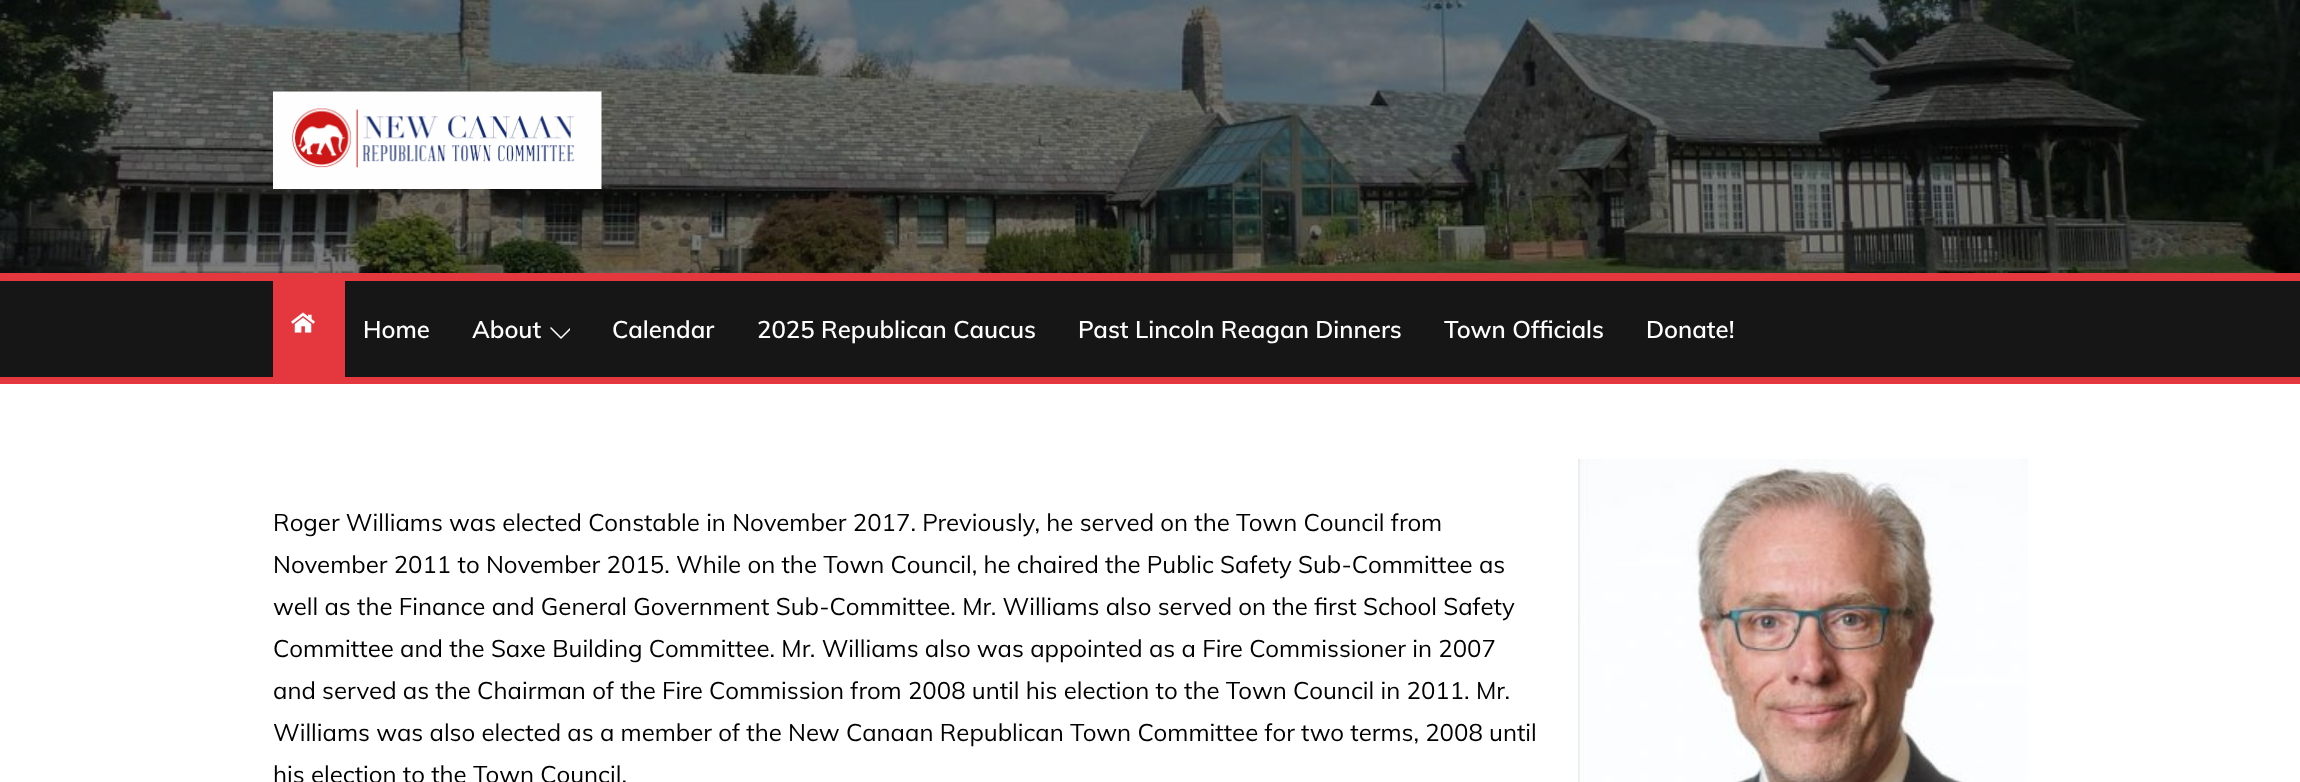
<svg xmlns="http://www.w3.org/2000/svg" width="2300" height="782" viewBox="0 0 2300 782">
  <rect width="100%" height="100%" fill="#ffffff"/>
  <rect x="0" y="281" width="2300" height="96" fill="#171616"/>
  <image x="0" y="0" width="2300" height="273" href="img1.png"/>
  <image x="273" y="91" width="329" height="98" href="img2.png"/>
  <rect x="0" y="273" width="2300" height="8" fill="#e5383e"/>
  <rect x="0" y="377" width="2300" height="7" fill="#e5383e"/>
  <rect x="273" y="281" width="72" height="96" fill="#e5383e"/>
  <image x="291" y="312" width="24" height="21" href="img3.png"/>
  <text x="363" y="338" font-family="Muli" font-size="24" font-weight="600" fill="#ffffff">Home</text>
  <text x="472" y="338" font-family="Muli" font-size="24" font-weight="600" fill="#ffffff">About</text>
  <image x="550" y="327" width="20" height="12" href="img4.png"/>
  <text x="612" y="338" font-family="Muli" font-size="24" font-weight="600" fill="#ffffff">Calendar</text>
  <text x="757" y="338" font-family="Muli" font-size="24" font-weight="600" fill="#ffffff">2025 Republican Caucus</text>
  <text x="1078" y="338" font-family="Muli" font-size="24" font-weight="600" fill="#ffffff">Past Lincoln Reagan Dinners</text>
  <text x="1444" y="338" font-family="Muli" font-size="24" font-weight="600" fill="#ffffff">Town Officials</text>
  <text x="1646" y="338" font-family="Muli" font-size="24" font-weight="600" fill="#ffffff">Donate!</text>
  <text x="273" y="531" font-family="Muli" font-size="24" fill="#000000">Roger Williams was elected Constable in November 2017. Previously, he served on the Town Council from</text>
  <image x="1578" y="459" width="450" height="323" href="img5.png"/>
  <text x="273" y="573" font-family="Muli" font-size="24" fill="#000000">November 2011 to November 2015. While on the Town Council, he chaired the Public Safety Sub-Committee as</text>
  <text x="273" y="615" font-family="Muli" font-size="24" fill="#000000">well as the Finance and General Government Sub-Committee. Mr. Williams also served on the first School Safety</text>
  <text x="273" y="657" font-family="Muli" font-size="24" fill="#000000">Committee and the Saxe Building Committee. Mr. Williams also was appointed as a Fire Commissioner in 2007</text>
  <text x="273" y="699" font-family="Muli" font-size="24" fill="#000000">and served as the Chairman of the Fire Commission from 2008 until his election to the Town Council in 2011. Mr.</text>
  <text x="273" y="741" font-family="Muli" font-size="24" fill="#000000">Williams was also elected as a member of the New Canaan Republican Town Committee for two terms, 2008 until</text>
  <text x="273" y="783" font-family="Muli" font-size="24" fill="#000000">his election to the Town Council.</text>
</svg>
